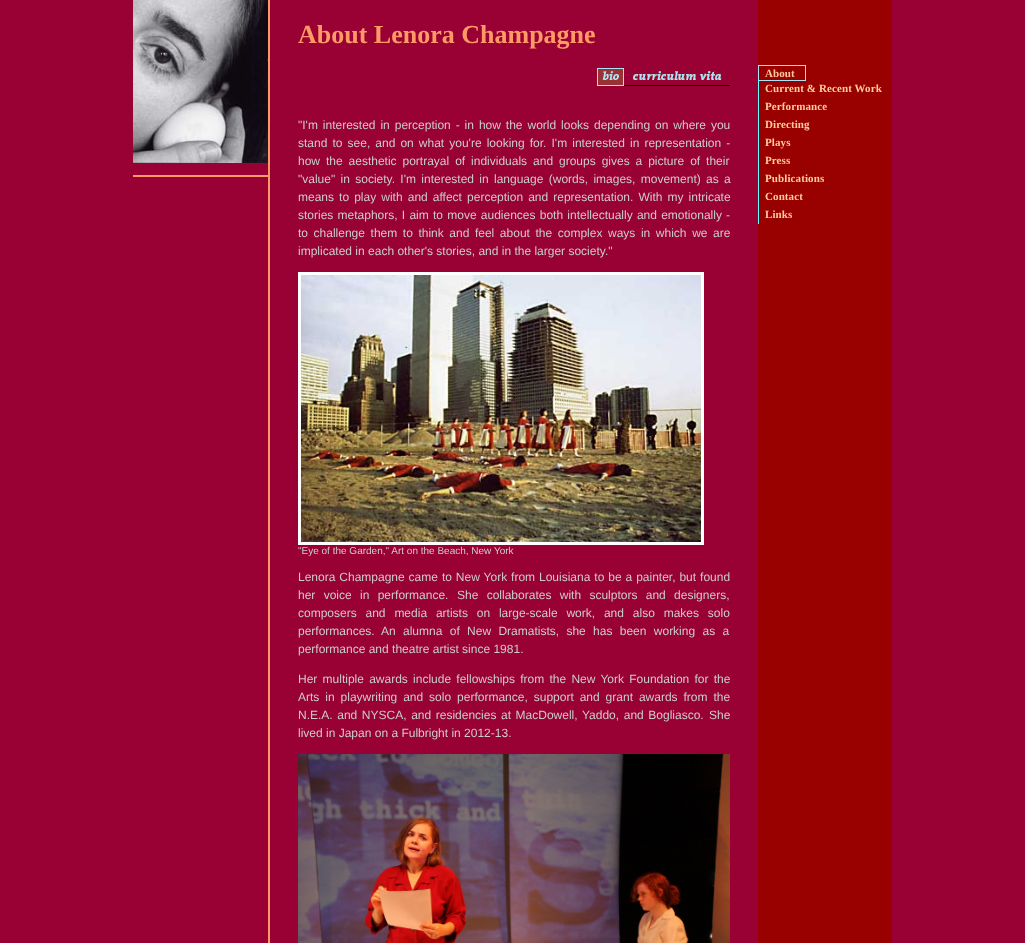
<svg xmlns="http://www.w3.org/2000/svg" width="1025" height="943" viewBox="0 0 1025 943">
  <rect width="100%" height="100%" fill="#990033"/>
  <image x="133" y="0" width="135" height="163" href="img1.png"/>
  <rect x="268" y="0" width="2" height="943" fill="#ff9966"/>
  <rect x="133" y="175" width="137" height="2" fill="#ff9966"/>
  <text x="298" y="43" font-family="Liberation Serif" font-size="26" font-weight="bold" fill="#ff9966">About Lenora Champagne</text>
  <image x="597" y="68" width="31" height="18" href="img2.png"/>
  <image x="628" y="71" width="102" height="15" href="img3.png"/>
  <text x="298" y="129" word-spacing="1.6" font-family="Liberation Sans" font-size="12" fill="#cccccc">"I'm interested in perception - in how the world looks depending on where you</text>
  <text x="298" y="147" word-spacing="1.75" font-family="Liberation Sans" font-size="12" fill="#cccccc">stand to see, and on what you're looking for. I'm interested in representation -</text>
  <text x="298" y="165" word-spacing="2.6" font-family="Liberation Sans" font-size="12" fill="#cccccc">how the aesthetic portrayal of individuals and groups gives a picture of their</text>
  <text x="298" y="183" word-spacing="2" font-family="Liberation Sans" font-size="12" fill="#cccccc">"value" in society. I'm interested in language (words, images, movement) as a</text>
  <text x="298" y="201" word-spacing="1.75" font-family="Liberation Sans" font-size="12" fill="#cccccc">means to play with and affect perception and representation. With my intricate</text>
  <text x="298" y="219" word-spacing="0.9" font-family="Liberation Sans" font-size="12" fill="#cccccc">stories metaphors, I aim to move audiences both intellectually and emotionally -</text>
  <text x="298" y="237" word-spacing="2.25" font-family="Liberation Sans" font-size="12" fill="#cccccc">to challenge them to think and feel about the complex ways in which we are</text>
  <text x="298" y="255" font-family="Liberation Sans" font-size="12" fill="#cccccc">implicated in each other's stories, and in the larger society."</text>
  <rect x="299.5" y="273.5" width="403" height="270" fill="none" stroke="#ffffff" stroke-width="3"/>
  <image x="301" y="275" width="400" height="267" href="img4.png"/>
  <text x="298" y="554" font-family="Liberation Sans" font-size="10" fill="#cccccc">"Eye of the Garden," Art on the Beach, New York</text>
  <text x="298" y="581" word-spacing="0.6" font-family="Liberation Sans" font-size="12" fill="#cccccc">Lenora Champagne came to New York from Louisiana to be a painter, but found</text>
  <text x="298" y="599" word-spacing="5" font-family="Liberation Sans" font-size="12" fill="#cccccc">her voice in performance.</text>
  <text x="457" y="599" word-spacing="5" font-family="Liberation Sans" font-size="12" fill="#cccccc">She collaborates with sculptors and designers,</text>
  <text x="298" y="617" word-spacing="5.5" font-family="Liberation Sans" font-size="12" fill="#cccccc">composers and media artists on large-scale work, and also makes solo</text>
  <text x="298" y="635" font-family="Liberation Sans" font-size="12" fill="#cccccc">performances.</text>
  <text x="381" y="635" word-spacing="4" font-family="Liberation Sans" font-size="12" fill="#cccccc">An alumna of New Dramatists, she has been working as a</text>
  <text x="298" y="653" font-family="Liberation Sans" font-size="12" fill="#cccccc">performance and theatre artist since 1981.</text>
  <text x="298" y="683" word-spacing="1.9" font-family="Liberation Sans" font-size="12" fill="#cccccc">Her multiple awards include fellowships from the New York Foundation for the</text>
  <text x="298" y="701" word-spacing="2.6" font-family="Liberation Sans" font-size="12" fill="#cccccc">Arts in playwriting and solo performance, support and grant awards from the</text>
  <text x="298" y="719" word-spacing="1.25" font-family="Liberation Sans" font-size="12" fill="#cccccc">N.E.A. and NYSCA, and residencies at MacDowell, Yaddo, and Bogliasco.</text>
  <text x="709" y="719" font-family="Liberation Sans" font-size="12" fill="#cccccc">She</text>
  <text x="298" y="737" font-family="Liberation Sans" font-size="12" fill="#cccccc">lived in Japan on a Fulbright in 2012-13.</text>
  <image x="298" y="754" width="432" height="189" href="img5.png"/>
  <rect x="758" y="0" width="134" height="943" fill="#990000"/>
  <rect x="758.5" y="65.5" width="47" height="15" fill="none" stroke="#ace1fa"/>
  <text x="765" y="77" font-family="Liberation Serif" font-size="11" font-weight="bold" letter-spacing="0.1" fill="#ffcc99">About</text>
  <text x="765" y="92" font-family="Liberation Serif" font-size="11" font-weight="bold" letter-spacing="0.1" fill="#ffcc99">Current &amp; Recent Work</text>
  <rect x="758" y="80" width="1" height="144" fill="#66ffff"/>
  <text x="765" y="110" font-family="Liberation Serif" font-size="11" font-weight="bold" letter-spacing="0.1" fill="#ffcc99">Performance</text>
  <text x="765" y="128" font-family="Liberation Serif" font-size="11" font-weight="bold" letter-spacing="0.1" fill="#ffcc99">Directing</text>
  <text x="765" y="146" font-family="Liberation Serif" font-size="11" font-weight="bold" letter-spacing="0.1" fill="#ffcc99">Plays</text>
  <text x="765" y="164" font-family="Liberation Serif" font-size="11" font-weight="bold" letter-spacing="0.1" fill="#ffcc99">Press</text>
  <text x="765" y="182" font-family="Liberation Serif" font-size="11" font-weight="bold" letter-spacing="0.1" fill="#ffcc99">Publications</text>
  <text x="765" y="200" font-family="Liberation Serif" font-size="11" font-weight="bold" letter-spacing="0.1" fill="#ffcc99">Contact</text>
  <text x="765" y="218" font-family="Liberation Serif" font-size="11" font-weight="bold" letter-spacing="0.1" fill="#ffcc99">Links</text>
</svg>
